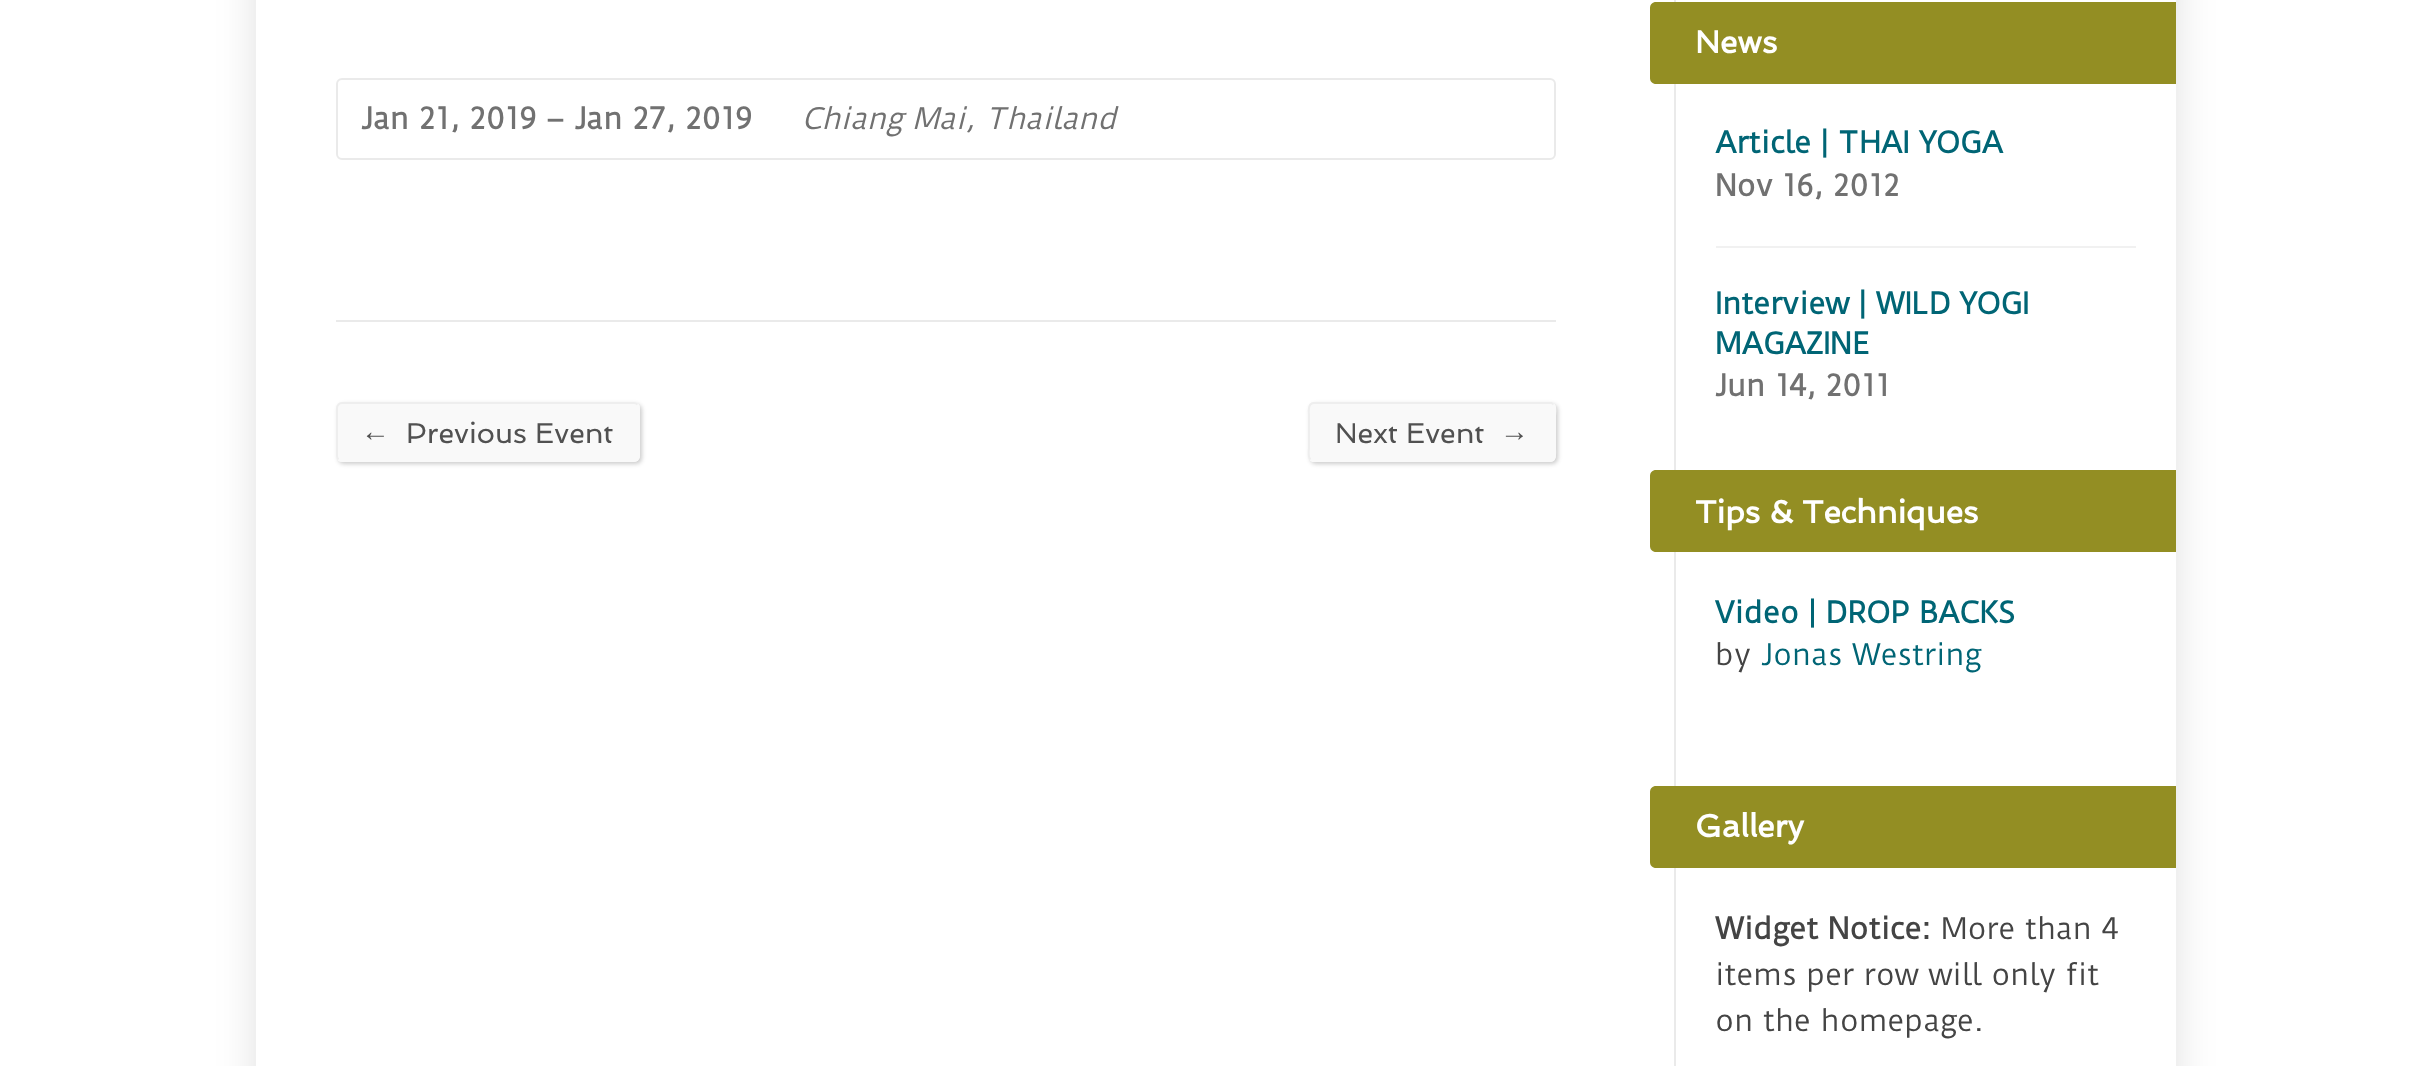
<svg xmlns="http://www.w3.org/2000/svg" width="2429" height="1066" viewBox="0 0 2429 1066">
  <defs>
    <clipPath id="clip1"><path d="M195 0H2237V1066H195ZM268-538H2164C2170.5-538 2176-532.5 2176-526V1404C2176 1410.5 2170.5 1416 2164 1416H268C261.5 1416 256 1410.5 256 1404V-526C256-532.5 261.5-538 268-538Z" clip-rule="evenodd"/></clipPath>
    <filter id="blur1" x="-50%" y="-200%" width="200%" height="500%"><feGaussianBlur stdDeviation="20"/></filter>
    <filter id="blur2" x="-50%" y="-200%" width="200%" height="500%"><feGaussianBlur stdDeviation="2"/></filter>
  </defs>
  <rect width="100%" height="100%" fill="#ffffff"/>
  <g clip-path="url(#clip1)">
    <rect x="256" y="-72" width="1920" height="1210" rx="12" fill="#000000" fill-opacity="0.12" filter="url(#blur1)"/>
  </g>
  <rect x="337" y="79" width="1218" height="80" rx="5" fill="none" stroke="#eaeaea" stroke-width="2"/>
  <text x="361" y="129" font-family="Duru Sans" font-size="28.75" font-weight="bold" fill="#717171">Jan 21, 2019 – Jan 27, 2019</text>
  <text x="802" y="129" font-family="Duru Sans" font-size="28.75" font-style="italic" fill="#717171">Chiang Mai, Thailand</text>
  <rect x="336" y="320" width="1220" height="2" fill="#eaeaea"/>
  <rect x="338" y="404" width="304" height="60" rx="6" fill="#000000" fill-opacity="0.2" filter="url(#blur2)"/>
  <rect x="336" y="402" width="304" height="60" rx="6" fill="#f9f9f9"/>
  <path d="M637.5 404.5C638.5 405.5 639 406.5 639 408V456C639 457.5 638.5 458.5 637.5 459.5C636.5 460.5 635.5 461 634 461H342C340.5 461 339.5 460.5 338.5 459.5" fill="none" stroke="#f9f9f9" stroke-width="2"/>
  <path d="M338.5 459.5C337.5 458.5 337 457.5 337 456V408C337 406.5 337.5 405.5 338.5 404.5C339.5 403.5 340.5 403 342 403H634C635.5 403 636.5 403.5 637.5 404.5" fill="none" stroke="#eeeeee" stroke-width="2"/>
  <text x="361" y="441" font-family="Liberation Sans" font-size="28.75" fill="#515151">←</text>
  <text x="406" y="443" font-family="Spinnaker" font-size="28.75" fill="#515151">Previous Event</text>
  <rect x="1310" y="404" width="248" height="60" rx="6" fill="#000000" fill-opacity="0.2" filter="url(#blur2)"/>
  <rect x="1308" y="402" width="248" height="60" rx="6" fill="#f9f9f9"/>
  <path d="M1553.5 404.5C1556.5 407 1555 413.5 1555 416V448C1555 452 1556.5 461 1550 461H1312.5L1310.5 459.5" fill="none" stroke="#f9f9f9" stroke-width="2"/>
  <path d="M1310.5 459.5C1307.5 457 1309 450.5 1309 448V416C1309 412 1307.5 403 1314 403H1551.5L1553.5 404.5" fill="none" stroke="#eeeeee" stroke-width="2"/>
  <text x="1335" y="443" font-family="Spinnaker" font-size="28.75" fill="#515151">Next Event</text>
  <text x="1500" y="441" font-family="Liberation Sans" font-size="28.75" fill="#515151">→</text>
  <rect x="1674" y="0" width="2" height="1066" fill="#eaeaea"/>
  <path d="M1656 2H2176V84H1656C1652.5 84 1650 81.5 1650 78V8C1650 4.5 1652.5 2 1656 2Z" fill="#938e23"/>
  <text x="1695" y="53" font-family="Spinnaker" font-size="31.75" font-weight="bold" fill="#ffffff">News</text>
  <text x="1715" y="153" font-family="Duru Sans" font-size="28.75" font-weight="bold" fill="#006575">Article | THAI YOGA</text>
  <text x="1715" y="196" font-family="Duru Sans" font-size="28.75" font-weight="bold" fill="#717171">Nov 16, 2012</text>
  <rect x="1716" y="246" width="420" height="2" fill="#f1f1f1"/>
  <text x="1715" y="314" font-family="Duru Sans" font-size="28.75" font-weight="bold" fill="#006575">Interview | WILD YOGI</text>
  <text x="1715" y="354" font-family="Duru Sans" font-size="28.75" font-weight="bold" fill="#006575">MAGAZINE</text>
  <text x="1715" y="396" font-family="Duru Sans" font-size="28.75" font-weight="bold" fill="#717171">Jun 14, 2011</text>
  <path d="M1656 470H2176V552H1656C1652.5 552 1650 549.5 1650 546V476C1650 472.5 1652.5 470 1656 470Z" fill="#938e23"/>
  <text x="1695" y="523" font-family="Spinnaker" font-size="31.75" font-weight="bold" fill="#ffffff">Tips &amp; Techniques</text>
  <text x="1715" y="623" font-family="Duru Sans" font-size="28.75" font-weight="bold" fill="#006575">Video | DROP BACKS</text>
  <text x="1715" y="665" font-family="Duru Sans" font-size="28.75" fill="#444444">by</text>
  <text x="1761" y="665" font-family="Duru Sans" font-size="28.75" fill="#006575">Jonas Westring</text>
  <path d="M1656 786H2176V868H1656C1652.5 868 1650 865.5 1650 862V792C1650 788.5 1652.5 786 1656 786Z" fill="#938e23"/>
  <text x="1695" y="837" font-family="Spinnaker" font-size="31.75" font-weight="bold" fill="#ffffff">Gallery</text>
  <text x="1715" y="939" font-family="Duru Sans" font-size="28.75" font-weight="bold" fill="#444444">Widget Notice:</text>
  <text x="1941" y="939" font-family="Duru Sans" font-size="28.75" fill="#444444">More than 4</text>
  <text x="1715" y="985" font-family="Duru Sans" font-size="28.75" fill="#444444">items per row will only fit</text>
  <text x="1715" y="1031" font-family="Duru Sans" font-size="28.75" fill="#444444">on the homepage.</text>
</svg>
